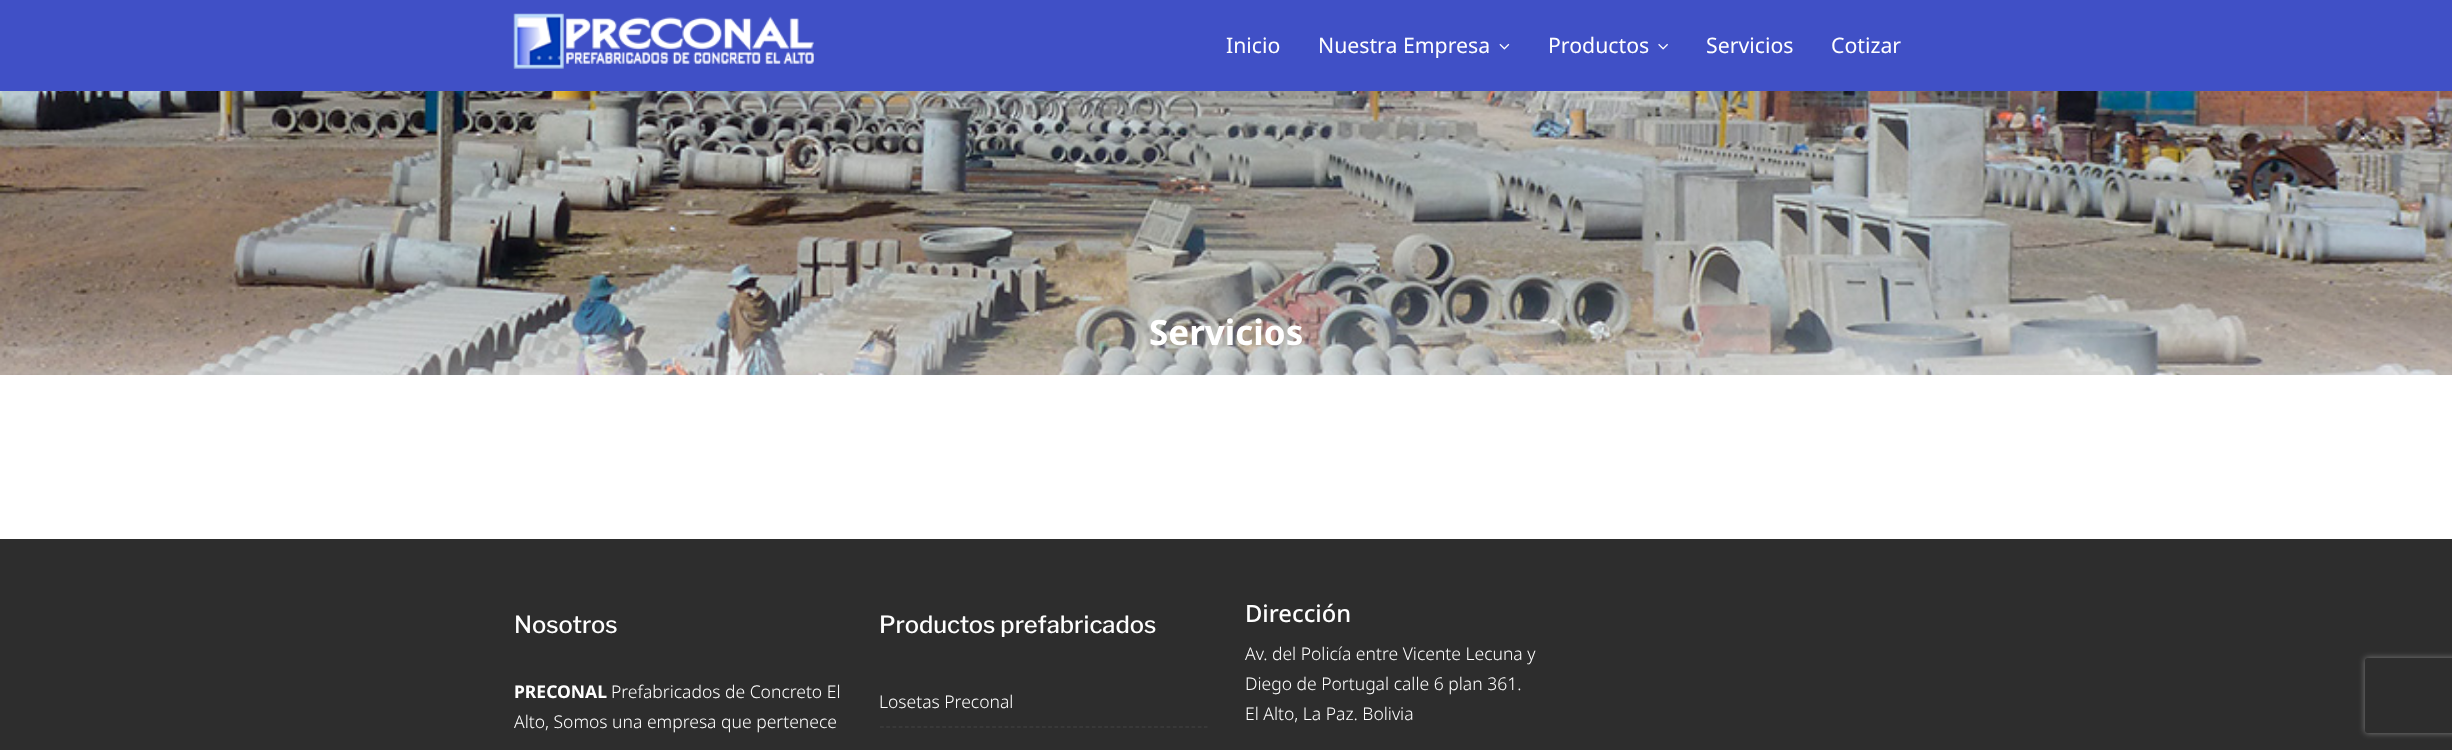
<svg xmlns="http://www.w3.org/2000/svg" width="2452" height="750" viewBox="0 0 2452 750">
  <defs>
    <clipPath id="clip1"><path d="M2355 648H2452V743H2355ZM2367.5 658H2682.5C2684 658 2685 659 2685 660.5V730.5C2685 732 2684 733 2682.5 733H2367.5C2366 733 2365 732 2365 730.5V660.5C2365 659 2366 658 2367.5 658Z" clip-rule="evenodd"/></clipPath>
    <filter id="blur1" x="-50%" y="-200%" width="200%" height="500%"><feGaussianBlur stdDeviation="3"/></filter>
  </defs>
  <rect width="100%" height="100%" fill="#ffffff"/>
  <rect x="0" y="0" width="2452" height="91" fill="#4050c6"/>
  <image x="513" y="13" width="301" height="56" href="img1.png"/>
  <text x="1226" y="53" font-family="Noto Sans" font-size="21.25" fill="#ffffff">Inicio</text>
  <text x="1318" y="53" font-family="Noto Sans" font-size="21.25" fill="#ffffff">Nuestra Empresa</text>
  <image x="1499" y="43" width="11" height="7" href="img2.png"/>
  <text x="1548" y="53" font-family="Noto Sans" font-size="21.25" fill="#ffffff">Productos</text>
  <image x="1658" y="43" width="10" height="7" href="img3.png"/>
  <text x="1706" y="53" font-family="Noto Sans" font-size="21.25" fill="#ffffff">Servicios</text>
  <text x="1831" y="53" font-family="Noto Sans" font-size="21.25" fill="#ffffff">Cotizar</text>
  <image x="0" y="91" width="2452" height="284" href="img4.png"/>
  <text x="1149" y="345" font-family="Noto Sans" font-size="35" font-weight="bold" fill="#ffffff">Servicios</text>
  <rect x="0" y="539" width="2452" height="211" fill="#2d2d2d"/>
  <text x="514" y="633" font-family="Libre Franklin" font-size="23.75" font-weight="500" fill="#ffffff">Nosotros</text>
  <text x="514" y="698" font-family="Noto Sans" font-size="17.5" font-weight="bold" fill="#ffffff">PRECONAL</text>
  <text x="611" y="698" font-family="Noto Sans" font-size="17.5" font-weight="300" fill="#ffffff">Prefabricados de Concreto El</text>
  <text x="514" y="728" font-family="Noto Sans" font-size="17.5" font-weight="300" fill="#ffffff">Alto, Somos una empresa que pertenece</text>
  <text x="879" y="633" font-family="Libre Franklin" font-size="23.75" font-weight="500" fill="#ffffff">Productos prefabricados</text>
  <path d="M880 727H1207.5" fill="none" stroke="#444444" stroke-width="1.2" stroke-dasharray="3.75 2.48"/>
  <text x="879" y="708" font-family="Noto Sans" font-size="17.5" font-weight="300" fill="#ffffff">Losetas Preconal</text>
  <text x="1245" y="622" font-family="Noto Sans" font-size="23.75" font-weight="500" fill="#ffffff">Dirección</text>
  <text x="1245" y="660" font-family="Noto Sans" font-size="17.5" font-weight="300" fill="#ffffff">Av. del Policía entre Vicente Lecuna y</text>
  <text x="1245" y="690" font-family="Noto Sans" font-size="17.5" font-weight="300" fill="#ffffff">Diego de Portugal calle 6 plan 361.</text>
  <text x="1245" y="720" font-family="Noto Sans" font-size="17.5" font-weight="300" fill="#ffffff">El Alto, La Paz. Bolivia</text>
  <g clip-path="url(#clip1)">
    <rect x="2365" y="658" width="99" height="75" rx="2.5" fill="#808080" filter="url(#blur1)"/>
  </g>
</svg>
